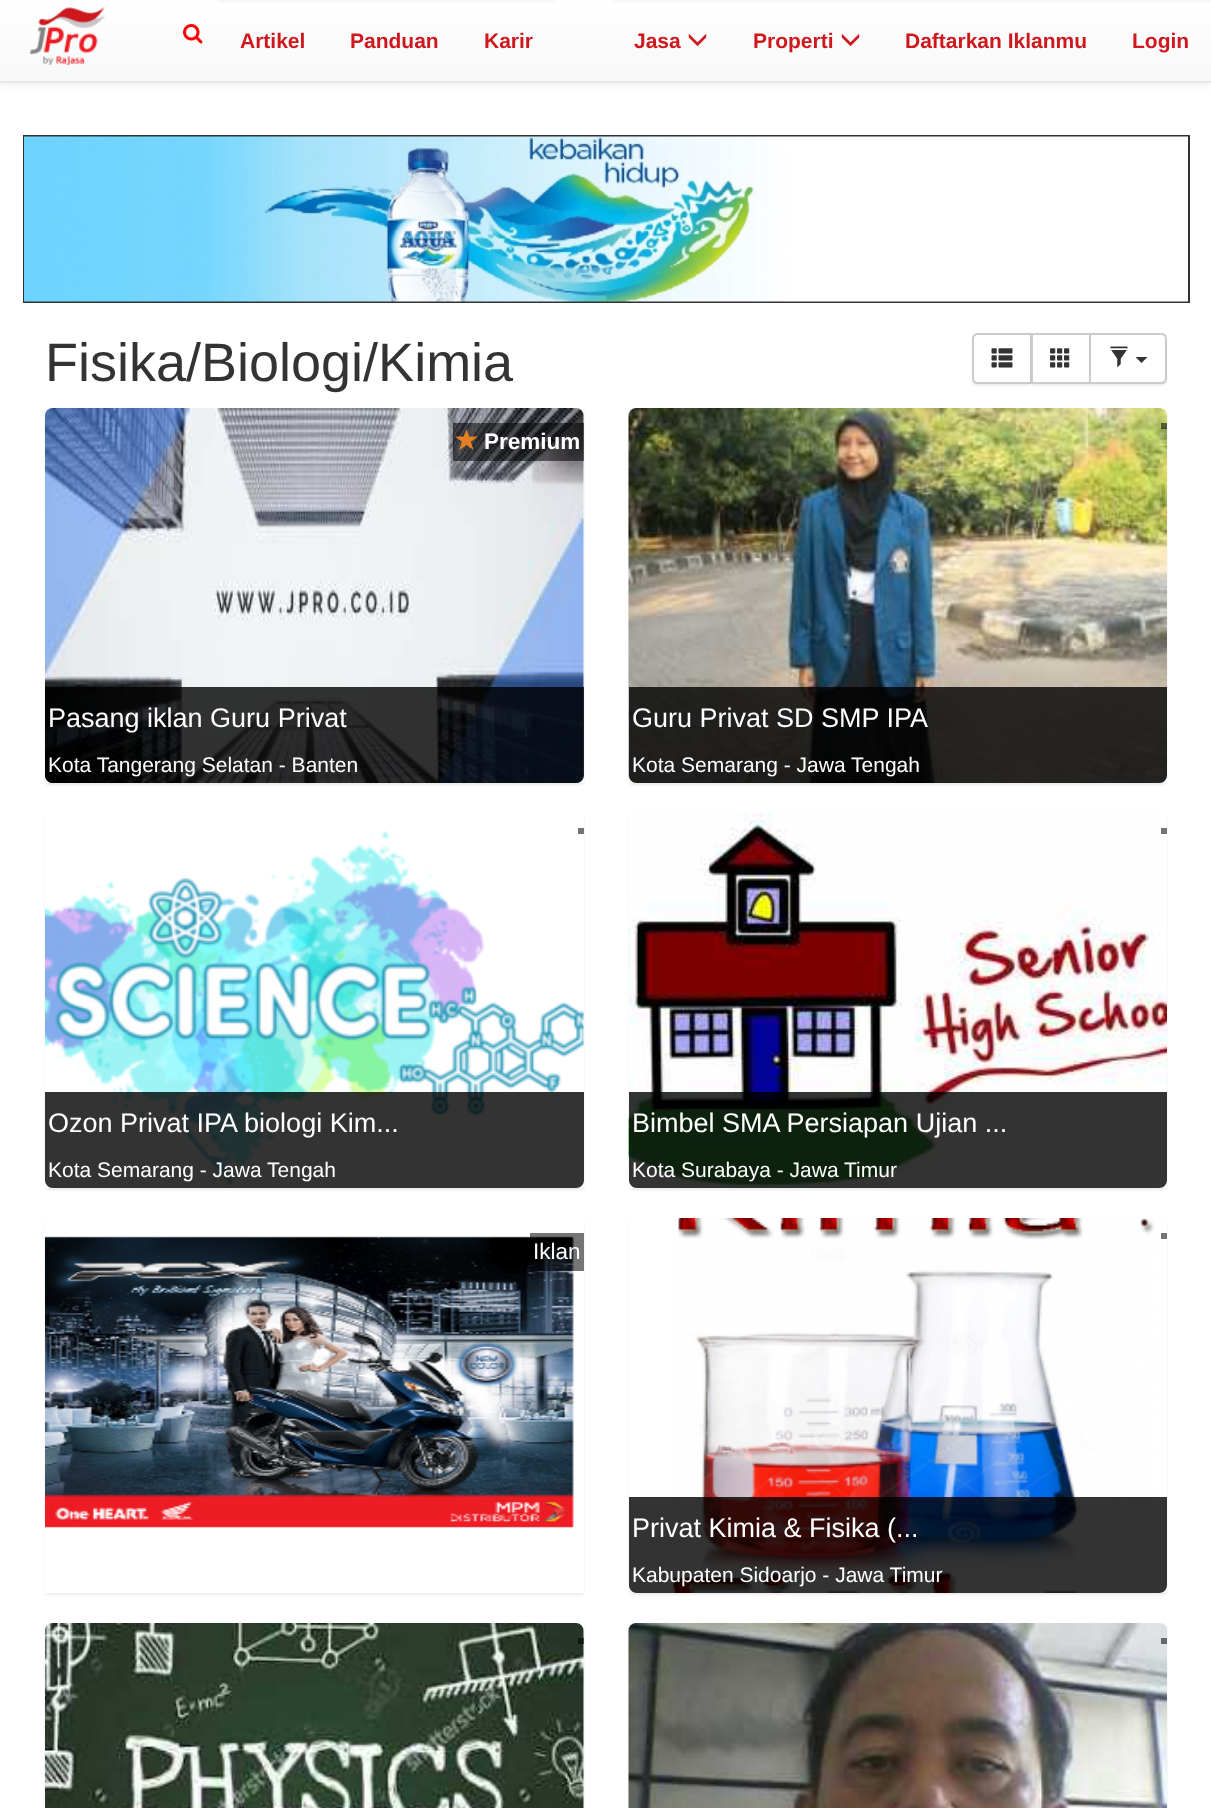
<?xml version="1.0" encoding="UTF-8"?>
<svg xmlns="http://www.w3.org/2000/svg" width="1211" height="1808">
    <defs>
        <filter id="blur1" x="-50%" y="-200%" width="200%" height="500%"><feGaussianBlur stdDeviation="4"/></filter>
        <linearGradient id="g1" gradientUnits="userSpaceOnUse" x1="606" y1="0" x2="606" y2="81"><stop offset="0" stop-color="#FFFFFF"/><stop offset="1" stop-color="#F8F8F8"/></linearGradient>
        <filter id="blur2" x="-50%" y="-200%" width="200%" height="500%"><feGaussianBlur stdDeviation="1"/></filter>
    </defs>
    <rect width="100%" height="100%" fill="#FFFFFF"/>
    <rect x="0" y="2" width="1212" height="82" fill="#000000" fill-opacity="0.07" filter="url(#blur1)"/>
    <rect x="0" y="0" width="1211" height="81" fill="url(#g1)"/>
    <rect x="0" y="81" width="1211" height="2" fill="#E7E7E7"/>
    <image x="30" y="6" width="76" height="59" href="img_01.png"/>
    <image x="183" y="24" width="20" height="20" href="img_02.png"/>
    <rect x="218" y="0" width="337" height="3" fill="#F8F8F8"/>
    <text x="240" y="48" font-family="Liberation Sans" font-size="21" font-weight="700" fill="#CF181D">Artikel</text>
    <text x="350" y="48" font-family="Liberation Sans" font-size="21" font-weight="700" fill="#CF181D">Panduan</text>
    <text x="484" y="48" font-family="Liberation Sans" font-size="21" font-weight="700" fill="#CF181D">Karir</text>
    <rect x="612" y="0" width="599" height="3" fill="#F8F8F8"/>
    <text x="634" y="48" font-family="Liberation Sans" font-size="21" font-weight="700" fill="#CF181D">Jasa</text>
    <image x="688" y="34" width="19" height="12" href="img_03.png"/>
    <text x="753" y="48" font-family="Liberation Sans" font-size="21" font-weight="700" fill="#CF181D">Properti</text>
    <image x="841" y="34" width="19" height="12" href="img_03.png"/>
    <text x="905" y="48" font-family="Liberation Sans" font-size="21" font-weight="700" fill="#CF181D">Daftarkan Iklanmu</text>
    <text x="1132" y="48" font-family="Liberation Sans" font-size="21" font-weight="700" fill="#CF181D">Login</text>
    <rect x="24" y="136" width="1165" height="166" fill="none" stroke="#333333" stroke-width="2"/>
    <image x="24" y="136" width="1164" height="166" href="img_04.png"/>
    <text x="45" y="381" font-family="Liberation Sans" font-size="54" fill="#333333">Fisika/Biologi/Kimia</text>
    <rect x="972" y="335" width="60" height="51" rx="6" fill="#000000" fill-opacity="0.07" filter="url(#blur2)"/>
    <path d="M 978 334 H 1031 V 383 H 978 C 975 383 973 381 973 378 V 339 C 973 336 975 334 978 334 Z" fill="#FFFFFF" stroke="#CCCCCC" stroke-width="2"/>
    <image x="991" y="348" width="22" height="20" href="img_05.png"/>
    <rect x="1031" y="335" width="60" height="51" fill="#000000" fill-opacity="0.07" filter="url(#blur2)"/>
    <rect x="1032" y="334" width="58" height="49" fill="#FFFFFF" stroke="#CCCCCC" stroke-width="2"/>
    <image x="1050" y="348" width="20" height="20" href="img_06.png"/>
    <rect x="1089" y="335" width="78" height="51" rx="6" fill="#000000" fill-opacity="0.07" filter="url(#blur2)"/>
    <path d="M 1090 334 H 1161 C 1164 334 1166 336 1166 339 V 378 C 1166 381 1164 383 1161 383 H 1090 Z" fill="#FFFFFF" stroke="#CCCCCC" stroke-width="2"/>
    <image x="1110" y="346" width="18" height="22" href="img_07.png"/>
    <path d="M 1135.5 357 H 1147.5 L 1141.5 363 Z" fill="#333333"/>
    <rect x="45" y="410" width="539" height="375" rx="3" fill="#000000" fill-opacity="0.08" filter="url(#blur2)"/>
    <rect x="45" y="408" width="539" height="375" rx="3" fill="#FFFFFF"/>
    <image x="45" y="408" width="539" height="375" href="img_08.png"/>
    <rect x="453" y="423" width="131" height="38" fill="#000000" fill-opacity="0.54"/>
    <image x="455" y="429" width="23" height="21" href="img_09.png"/>
    <text x="484" y="449" font-family="Liberation Sans" font-size="22.5" font-weight="700" fill="#FFFFFF">Premium</text>
    <path d="M 45 687 H 584 V 775 C 584 779.5 580.5 783 576 783 H 53 C 48.5 783 45 779.5 45 775 Z" fill="#000000" fill-opacity="0.8"/>
    <text x="48" y="727" font-family="Liberation Sans" font-size="27" fill="#FFFFFF">Pasang iklan Guru Privat</text>
    <text x="48" y="772" font-family="Liberation Sans" font-size="21" fill="#FFFFFF">Kota Tangerang Selatan - Banten</text>
    <rect x="629" y="410" width="538" height="375" rx="3" fill="#000000" fill-opacity="0.08" filter="url(#blur2)"/>
    <rect x="629" y="408" width="538" height="375" rx="3" fill="#FFFFFF"/>
    <image x="628" y="408" width="539" height="375" href="img_10.png"/>
    <rect x="1161" y="423" width="6" height="6" fill="#000000" fill-opacity="0.54"/>
    <path d="M 629 687 H 1167 V 775 C 1167 779.5 1163.5 783 1159 783 H 637 C 632.5 783 629 779.5 629 775 Z" fill="#000000" fill-opacity="0.8"/>
    <text x="632" y="727" font-family="Liberation Sans" font-size="27" fill="#FFFFFF">Guru Privat SD SMP IPA</text>
    <text x="632" y="772" font-family="Liberation Sans" font-size="21" fill="#FFFFFF">Kota Semarang - Jawa Tengah</text>
    <rect x="45" y="815" width="539" height="375" rx="3" fill="#000000" fill-opacity="0.08" filter="url(#blur2)"/>
    <rect x="45" y="813" width="539" height="375" rx="3" fill="#FFFFFF"/>
    <image x="45" y="830" width="539" height="356" href="img_11.png"/>
    <rect x="578" y="828" width="6" height="6" fill="#757575"/>
    <path d="M 45 1092 H 584 V 1180 C 584 1184.5 580.5 1188 576 1188 H 53 C 48.5 1188 45 1184.5 45 1180 Z" fill="#000000" fill-opacity="0.8"/>
    <text x="48" y="1132" font-family="Liberation Sans" font-size="27" fill="#FFFFFF">Ozon Privat IPA biologi Kim...</text>
    <text x="48" y="1177" font-family="Liberation Sans" font-size="21" fill="#FFFFFF">Kota Semarang - Jawa Tengah</text>
    <rect x="629" y="815" width="538" height="375" rx="3" fill="#000000" fill-opacity="0.08" filter="url(#blur2)"/>
    <rect x="629" y="813" width="538" height="375" rx="3" fill="#FFFFFF"/>
    <image x="628" y="813" width="539" height="375" href="img_12.png"/>
    <rect x="1161" y="828" width="6" height="6" fill="#757575"/>
    <path d="M 629 1092 H 1167 V 1180 C 1167 1184.5 1163.5 1188 1159 1188 H 637 C 632.5 1188 629 1184.5 629 1180 Z" fill="#000000" fill-opacity="0.8"/>
    <text x="632" y="1132" font-family="Liberation Sans" font-size="27" fill="#FFFFFF">Bimbel SMA Persiapan Ujian ...</text>
    <text x="632" y="1177" font-family="Liberation Sans" font-size="21" fill="#FFFFFF">Kota Surabaya - Jawa Timur</text>
    <rect x="45" y="1220" width="539" height="375" rx="3" fill="#000000" fill-opacity="0.08" filter="url(#blur2)"/>
    <rect x="45" y="1218" width="539" height="375" rx="3" fill="#FFFFFF"/>
    <image x="45" y="1236" width="539" height="357" href="img_13.png"/>
    <rect x="530" y="1233" width="54" height="38" fill="#000000" fill-opacity="0.54"/>
    <text x="533" y="1259" font-family="Liberation Sans" font-size="22.5" fill="#FFFFFF">Iklan</text>
    <rect x="629" y="1220" width="538" height="375" rx="3" fill="#000000" fill-opacity="0.08" filter="url(#blur2)"/>
    <rect x="629" y="1218" width="538" height="375" rx="3" fill="#FFFFFF"/>
    <image x="673" y="1218" width="482" height="375" href="img_14.png"/>
    <rect x="1161" y="1233" width="6" height="6" fill="#757575"/>
    <path d="M 629 1497 H 1167 V 1585 C 1167 1589.5 1163.5 1593 1159 1593 H 637 C 632.5 1593 629 1589.5 629 1585 Z" fill="#000000" fill-opacity="0.8"/>
    <text x="632" y="1537" font-family="Liberation Sans" font-size="27" fill="#FFFFFF">Privat Kimia &amp; Fisika (...</text>
    <text x="632" y="1582" font-family="Liberation Sans" font-size="21" fill="#FFFFFF">Kabupaten Sidoarjo - Jawa Timur</text>
    <rect x="45" y="1625" width="539" height="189" rx="3" fill="#000000" fill-opacity="0.08" filter="url(#blur2)"/>
    <rect x="45" y="1623" width="539" height="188" rx="3" fill="#FFFFFF"/>
    <image x="45" y="1623" width="539" height="185" href="img_15.png"/>
    <rect x="578" y="1638" width="6" height="6" fill="#000000" fill-opacity="0.54"/>
    <rect x="629" y="1625" width="538" height="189" rx="3" fill="#000000" fill-opacity="0.08" filter="url(#blur2)"/>
    <image x="628" y="1623" width="539" height="185" href="img_16.png"/>
    <rect x="1161" y="1638" width="6" height="6" fill="#666869"/>
</svg>
